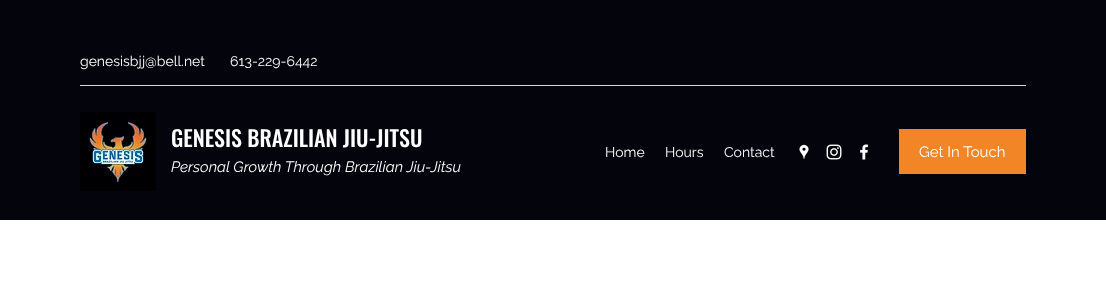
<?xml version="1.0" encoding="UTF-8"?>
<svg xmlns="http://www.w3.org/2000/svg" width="1106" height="303">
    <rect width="100%" height="100%" fill="#FFFFFF"/>
    <rect x="0" y="0" width="1106" height="220" fill="#04040C"/>
    <text x="80" y="66" font-family="Raleway" font-size="14" fill="#FFFFFF">genesisbjj@bell.net</text>
    <text x="230" y="66" font-family="Raleway" font-size="14" fill="#FFFFFF">613-229-6442</text>
    <rect x="80" y="85" width="946" height="1" fill="#D9D9DB"/>
    <image x="80" y="112" width="76" height="79" href="img_01.png"/>
    <text x="171" y="147" font-family="Oswald" font-size="22" font-weight="500" fill="#FFFFFF">GENESIS BRAZILIAN JIU-JITSU</text>
    <text x="171" y="172" font-family="Raleway" font-size="15" font-style="italic" fill="#FFFFFF">Personal Growth Through Brazilian Jiu-Jitsu</text>
    <text x="605" y="157" font-family="Raleway" font-size="14" fill="#FFFFFF">Home</text>
    <text x="665" y="157" font-family="Raleway" font-size="14" fill="#FFFFFF">Hours</text>
    <text x="724" y="157" font-family="Raleway" font-size="14" fill="#FFFFFF">Contact</text>
    <image x="799" y="144" width="10" height="15" href="img_02.png"/>
    <image x="826" y="144" width="16" height="16" href="img_03.png"/>
    <image x="860" y="144" width="9" height="16" href="img_04.png"/>
    <rect x="899" y="129" width="127" height="45" fill="#F28626"/>
    <text x="919" y="157" font-family="Raleway" font-size="15" fill="#FFFFFF">Get In Touch</text>
</svg>
